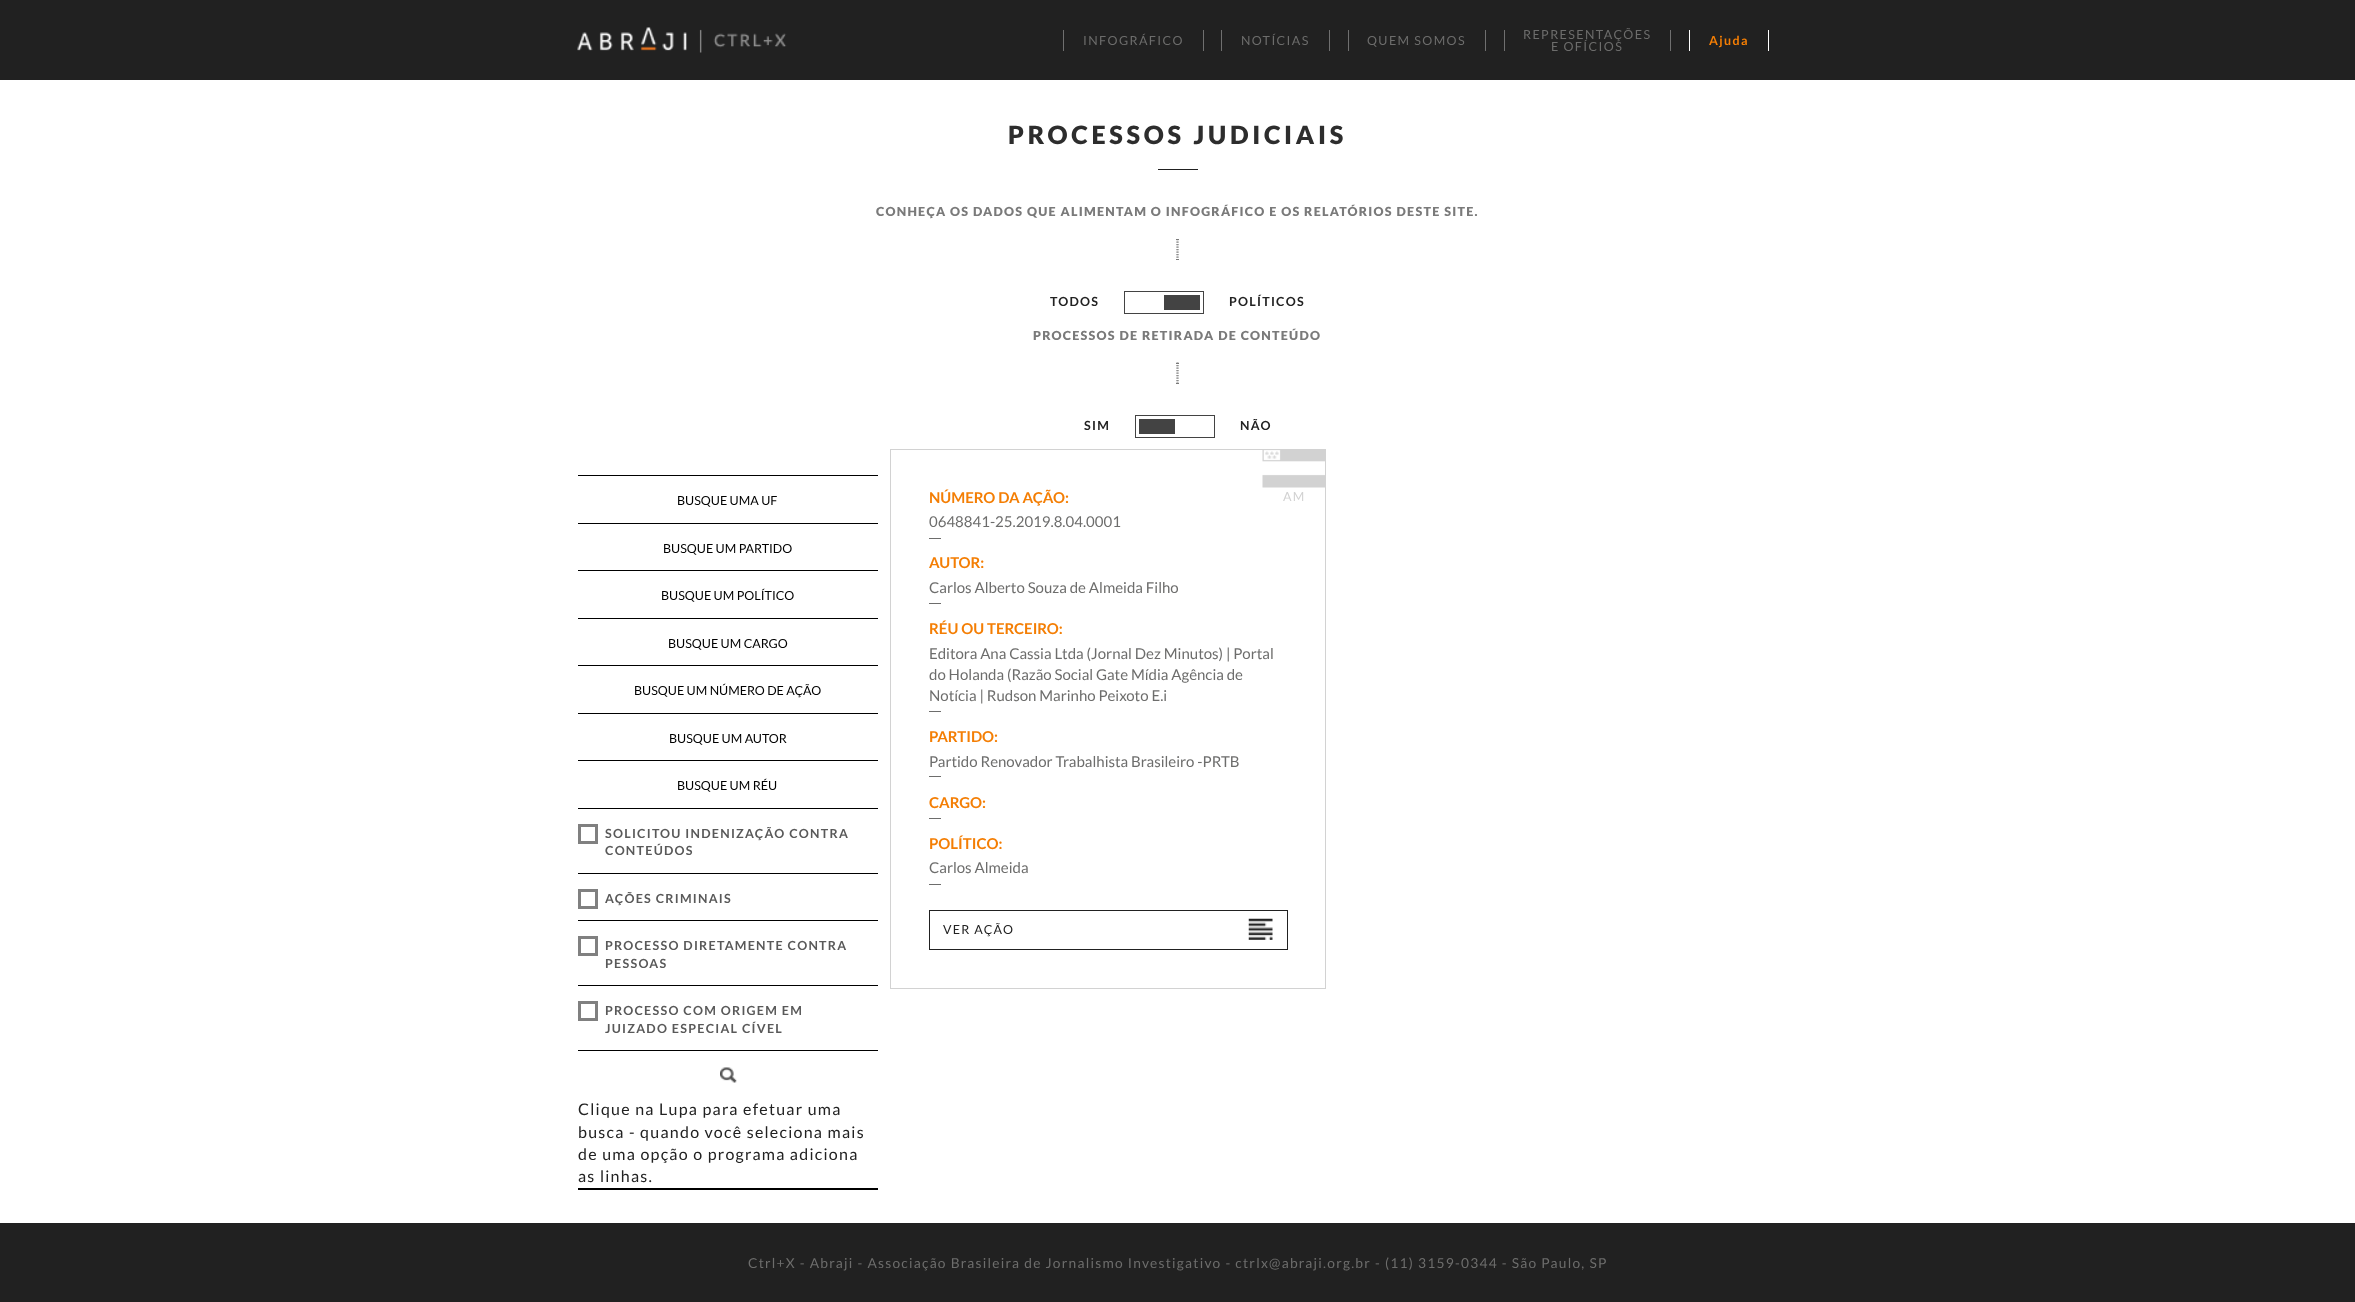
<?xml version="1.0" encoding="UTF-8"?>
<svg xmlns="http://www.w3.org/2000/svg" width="2355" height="1302">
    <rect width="100%" height="100%" fill="#FFFFFF"/>
    <rect x="0" y="0" width="2355" height="80" fill="#212121"/>
    <image x="577" y="27" width="210" height="26" href="img_01.png"/>
    <rect x="1063" y="30" width="1" height="21" fill="#6F6F6F"/>
    <text x="1083" y="45" font-family="Lato" font-size="12.5" letter-spacing="1.4" fill="#6D6D6C">INFOGRÁFICO</text>
    <rect x="1203" y="30" width="1" height="21" fill="#6F6F6F"/>
    <rect x="1221" y="30" width="1" height="21" fill="#6F6F6F"/>
    <text x="1241" y="45" font-family="Lato" font-size="12.5" letter-spacing="1.4" fill="#6D6D6C">NOTÍCIAS</text>
    <rect x="1329" y="30" width="1" height="21" fill="#6F6F6F"/>
    <rect x="1348" y="30" width="1" height="21" fill="#6F6F6F"/>
    <text x="1367" y="45" font-family="Lato" font-size="12.5" letter-spacing="1.4" fill="#6D6D6C">QUEM SOMOS</text>
    <rect x="1485" y="30" width="1" height="21" fill="#6F6F6F"/>
    <rect x="1504" y="30" width="1" height="21" fill="#6F6F6F"/>
    <text x="1523" y="39" font-family="Lato" font-size="12.5" letter-spacing="1.4" fill="#6D6D6C">REPRESENTAÇÕES</text>
    <rect x="1670" y="30" width="1" height="21" fill="#6F6F6F"/>
    <text x="1551" y="51" font-family="Lato" font-size="12.5" letter-spacing="1.4" fill="#6D6D6C">E OFÍCIOS</text>
    <rect x="1689" y="30" width="1" height="21" fill="#FFFFFF"/>
    <text x="1709" y="45" font-family="Lato" font-size="12.5" font-weight="700" letter-spacing="1.4" fill="#F47E04">Ajuda</text>
    <rect x="1768" y="30" width="1" height="21" fill="#FFFFFF"/>
    <text x="1008" y="144" font-family="Lato" font-size="25" font-weight="900" letter-spacing="3.75" fill="#2D2D2D">PROCESSOS JUDICIAIS</text>
    <rect x="1158" y="169" width="40" height="1" fill="#212121"/>
    <text x="876" y="216" font-family="Lato" font-size="12.5" font-weight="900" letter-spacing="1.25" fill="#7A7A7A">CONHEÇA OS DADOS QUE ALIMENTAM O INFOGRÁFICO E OS RELATÓRIOS DESTE SITE.</text>
    <rect x="1176" y="239" width="3" height="1" fill="#7A7A7A"/>
    <path d="M 1178 239 V 260" fill="none" stroke="#7A7A7A" stroke-width="1.2" stroke-dasharray="1.25 1.25"/>
    <rect x="1176" y="259" width="3" height="1" fill="#7A7A7A"/>
    <path d="M 1177 239 V 260" fill="none" stroke="#7A7A7A" stroke-width="1.2" stroke-dasharray="1.25 1.25"/>
    <text x="1050" y="306" font-family="Lato" font-size="12.5" font-weight="700" letter-spacing="1.25" fill="#222222">TODOS</text>
    <rect x="1124.5" y="291.5" width="79" height="22" fill="none" stroke="#434343"/>
    <rect x="1164" y="295" width="36" height="15" fill="#434343"/>
    <text x="1229" y="306" font-family="Lato" font-size="12.5" font-weight="700" letter-spacing="1.25" fill="#222222">POLÍTICOS</text>
    <text x="1033" y="340" font-family="Lato" font-size="12.5" font-weight="900" letter-spacing="1.25" fill="#7A7A7A">PROCESSOS DE RETIRADA DE CONTEÚDO</text>
    <rect x="1176" y="363" width="3" height="1" fill="#7A7A7A"/>
    <path d="M 1178 362.5 V 384" fill="none" stroke="#7A7A7A" stroke-width="1.2" stroke-dasharray="1.25 1.25"/>
    <rect x="1176" y="383" width="3" height="1" fill="#7A7A7A"/>
    <path d="M 1177 362.5 V 384" fill="none" stroke="#7A7A7A" stroke-width="1.2" stroke-dasharray="1.25 1.25"/>
    <text x="1084" y="430" font-family="Lato" font-size="12.5" font-weight="700" letter-spacing="1.25" fill="#222222">SIM</text>
    <rect x="1135.5" y="415.5" width="79" height="22" fill="none" stroke="#434343"/>
    <rect x="1139" y="419" width="36" height="15" fill="#434343"/>
    <text x="1240" y="430" font-family="Lato" font-size="12.5" font-weight="700" letter-spacing="1.25" fill="#222222">NÃO</text>
    <rect x="578" y="475" width="300" height="1" fill="#000000"/>
    <rect x="578" y="1188" width="300" height="2" fill="#000000"/>
    <text x="677" y="505" font-family="Lato" font-size="12.5" fill="#000000">BUSQUE UMA UF</text>
    <rect x="578" y="523" width="300" height="1" fill="#000000"/>
    <text x="663" y="553" font-family="Lato" font-size="12.5" fill="#000000">BUSQUE UM PARTIDO</text>
    <rect x="578" y="570" width="300" height="1" fill="#000000"/>
    <text x="661" y="600" font-family="Lato" font-size="12.5" fill="#000000">BUSQUE UM POLÍTICO</text>
    <rect x="578" y="618" width="300" height="1" fill="#000000"/>
    <text x="668" y="648" font-family="Lato" font-size="12.5" fill="#000000">BUSQUE UM CARGO</text>
    <rect x="578" y="665" width="300" height="1" fill="#000000"/>
    <text x="634" y="695" font-family="Lato" font-size="12.5" fill="#000000">BUSQUE UM NÚMERO DE AÇÃO</text>
    <rect x="578" y="713" width="300" height="1" fill="#000000"/>
    <text x="669" y="743" font-family="Lato" font-size="12.5" fill="#000000">BUSQUE UM AUTOR</text>
    <rect x="578" y="760" width="300" height="1" fill="#000000"/>
    <text x="677" y="790" font-family="Lato" font-size="12.5" fill="#000000">BUSQUE UM RÉU</text>
    <rect x="578" y="808" width="300" height="1" fill="#000000"/>
    <rect x="579.5" y="825.5" width="17" height="17" fill="none" stroke="#808080" stroke-width="3"/>
    <text font-family="Lato" font-size="12.5" font-weight="700" letter-spacing="1.25" fill="#595959">
        <tspan x="605" y="838">SOLICITOU INDENIZAÇÃO CONTRA</tspan>
        <tspan x="605" y="855">CONTEÚDOS</tspan>
    </text>
    <rect x="578" y="873" width="300" height="1" fill="#000000"/>
    <rect x="579.5" y="890.5" width="17" height="17" fill="none" stroke="#808080" stroke-width="3"/>
    <text x="605" y="903" font-family="Lato" font-size="12.5" font-weight="700" letter-spacing="1.25" fill="#595959">AÇÕES CRIMINAIS</text>
    <rect x="578" y="920" width="300" height="1" fill="#000000"/>
    <rect x="579.5" y="937.5" width="17" height="17" fill="none" stroke="#808080" stroke-width="3"/>
    <text font-family="Lato" font-size="12.5" font-weight="700" letter-spacing="1.25" fill="#595959">
        <tspan x="605" y="950">PROCESSO DIRETAMENTE CONTRA</tspan>
        <tspan x="605" y="968">PESSOAS</tspan>
    </text>
    <rect x="578" y="985" width="300" height="1" fill="#000000"/>
    <rect x="579.5" y="1002.5" width="17" height="17" fill="none" stroke="#808080" stroke-width="3"/>
    <text font-family="Lato" font-size="12.5" font-weight="700" letter-spacing="1.25" fill="#595959">
        <tspan x="605" y="1015">PROCESSO COM ORIGEM EM</tspan>
        <tspan x="605" y="1033">JUIZADO ESPECIAL CÍVEL</tspan>
    </text>
    <rect x="578" y="1050" width="300" height="1" fill="#000000"/>
    <image x="720" y="1067" width="17" height="16" href="img_02.png"/>
    <text font-family="Lato" font-size="16" letter-spacing="1.25" fill="#222222">
        <tspan x="578" y="1115">Clique na Lupa para efetuar uma</tspan>
        <tspan x="578" y="1138">busca - quando você seleciona mais</tspan>
        <tspan x="578" y="1160">de uma opção o programa adiciona</tspan>
        <tspan x="578" y="1182">as linhas.</tspan>
    </text>
    <rect x="890.5" y="449.5" width="435" height="539" fill="none" stroke="#D2D2D2"/>
    <text x="929" y="503" font-family="Lato" font-size="15" font-weight="700" fill="#F47E04">NÚMERO DA AÇÃO:</text>
    <image x="1262" y="450" width="63" height="38" href="img_03.png"/>
    <text x="1283" y="501" font-family="Lato" font-size="12.5" letter-spacing="1.25" fill="#D2D2D2">AM</text>
    <text x="929" y="527" font-family="Lato" font-size="15" fill="#6D6D6C">0648841-25.2019.8.04.0001</text>
    <rect x="929" y="538" width="12" height="1" fill="#6D6D6C"/>
    <text x="929" y="568" font-family="Lato" font-size="15" font-weight="700" fill="#F47E04">AUTOR:</text>
    <text x="929" y="593" font-family="Lato" font-size="15" fill="#6D6D6C">Carlos Alberto Souza de Almeida Filho</text>
    <rect x="929" y="603" width="12" height="1" fill="#6D6D6C"/>
    <text x="929" y="634" font-family="Lato" font-size="15" font-weight="700" fill="#F47E04">RÉU OU TERCEIRO:</text>
    <text font-family="Lato" font-size="15" fill="#6D6D6C">
        <tspan x="929" y="659">Editora Ana Cassia Ltda (Jornal Dez Minutos) | Portal</tspan>
        <tspan x="929" y="680">do Holanda (Razão Social Gate Mídia Agência de</tspan>
        <tspan x="929" y="701">Notícia | Rudson Marinho Peixoto E.i</tspan>
    </text>
    <rect x="929" y="711" width="12" height="1" fill="#6D6D6C"/>
    <text x="929" y="742" font-family="Lato" font-size="15" font-weight="700" fill="#F47E04">PARTIDO:</text>
    <text x="929" y="767" font-family="Lato" font-size="15" fill="#6D6D6C">Partido Renovador Trabalhista Brasileiro -PRTB</text>
    <rect x="929" y="776" width="12" height="1" fill="#6D6D6C"/>
    <text x="929" y="808" font-family="Lato" font-size="15" font-weight="700" fill="#F47E04">CARGO:</text>
    <rect x="929" y="818" width="12" height="1" fill="#6D6D6C"/>
    <text x="929" y="849" font-family="Lato" font-size="15" font-weight="700" fill="#F47E04">POLÍTICO:</text>
    <text x="929" y="873" font-family="Lato" font-size="15" fill="#6D6D6C">Carlos Almeida</text>
    <rect x="929" y="884" width="12" height="1" fill="#6D6D6C"/>
    <rect x="929.5" y="910.5" width="358" height="39" fill="none" stroke="#212121"/>
    <text x="943" y="934" font-family="Lato" font-size="12.5" letter-spacing="1.25" fill="#222222">VER AÇÃO</text>
    <image x="1248" y="918" width="25" height="22" href="img_04.png"/>
    <rect x="0" y="1223" width="2355" height="79" fill="#212121"/>
    <text x="748" y="1268" font-family="Lato" font-size="13.75" letter-spacing="1.25" fill="#6D6D6C">Ctrl+X - Abraji - Associação Brasileira de Jornalismo Investigativo - ctrlx@abraji.org.br - (11) 3159-0344 - São Paulo, SP</text>
</svg>
